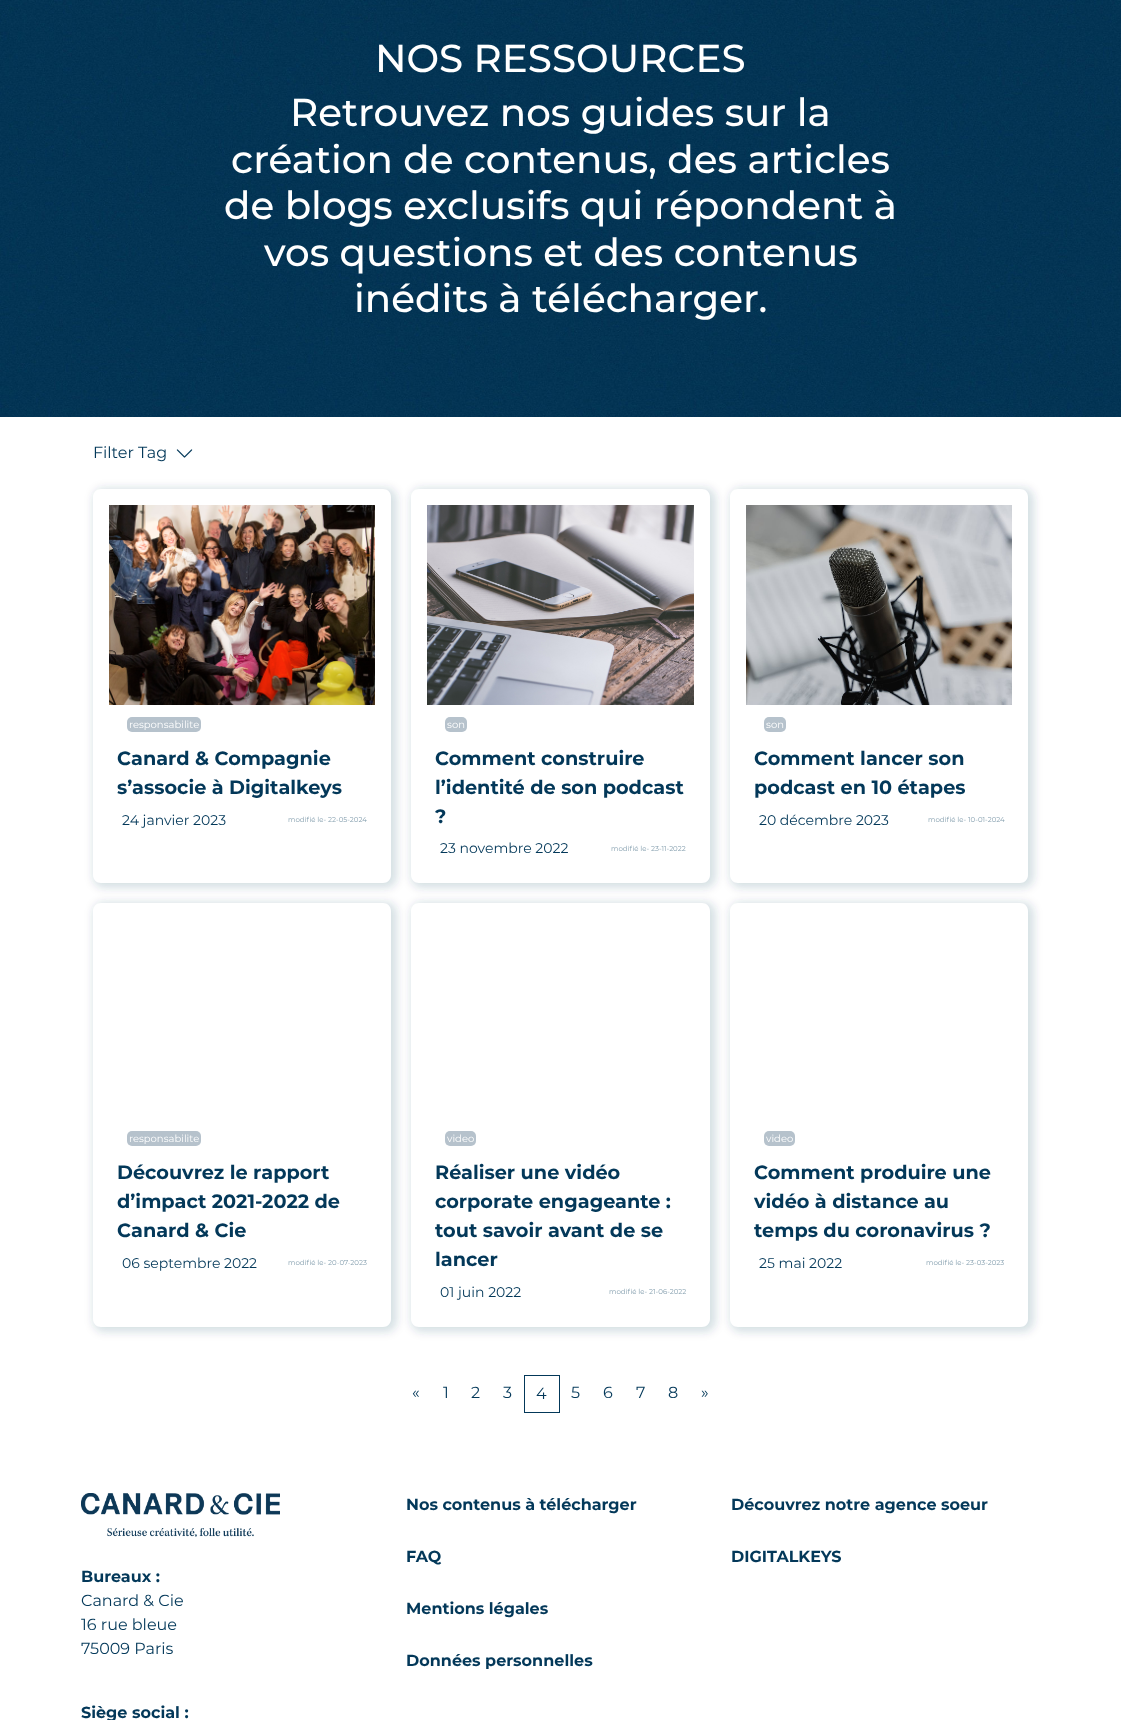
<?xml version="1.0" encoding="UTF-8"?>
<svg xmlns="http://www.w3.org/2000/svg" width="1121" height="1720">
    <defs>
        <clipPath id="clip1"><path d="M 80 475 H 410 V 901 H 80 Z M 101 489 H 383 C 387.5 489 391 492.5 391 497 V 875 C 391 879.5 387.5 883 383 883 H 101 C 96.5 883 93 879.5 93 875 V 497 C 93 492.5 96.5 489 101 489 Z" clip-rule="evenodd"/></clipPath>
        <filter id="blur1" x="-50%" y="-200%" width="200%" height="500%"><feGaussianBlur stdDeviation="4"/></filter>
        <clipPath id="clip2"><path d="M 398 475 H 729 V 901 H 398 Z M 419 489 H 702 C 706.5 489 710 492.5 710 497 V 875 C 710 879.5 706.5 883 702 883 H 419 C 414.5 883 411 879.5 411 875 V 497 C 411 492.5 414.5 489 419 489 Z" clip-rule="evenodd"/></clipPath>
        <clipPath id="clip3"><path d="M 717 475 H 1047 V 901 H 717 Z M 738 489 H 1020 C 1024.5 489 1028 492.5 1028 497 V 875 C 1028 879.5 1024.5 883 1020 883 H 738 C 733.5 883 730 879.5 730 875 V 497 C 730 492.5 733.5 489 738 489 Z" clip-rule="evenodd"/></clipPath>
        <clipPath id="clip4"><path d="M 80 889 H 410 V 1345 H 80 Z M 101 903 H 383 C 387.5 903 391 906.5 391 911 V 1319 C 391 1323.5 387.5 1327 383 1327 H 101 C 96.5 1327 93 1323.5 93 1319 V 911 C 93 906.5 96.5 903 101 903 Z" clip-rule="evenodd"/></clipPath>
        <clipPath id="clip5"><path d="M 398 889 H 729 V 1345 H 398 Z M 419 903 H 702 C 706.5 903 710 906.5 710 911 V 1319 C 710 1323.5 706.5 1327 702 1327 H 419 C 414.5 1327 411 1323.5 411 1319 V 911 C 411 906.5 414.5 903 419 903 Z" clip-rule="evenodd"/></clipPath>
        <clipPath id="clip6"><path d="M 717 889 H 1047 V 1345 H 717 Z M 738 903 H 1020 C 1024.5 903 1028 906.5 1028 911 V 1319 C 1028 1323.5 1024.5 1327 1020 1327 H 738 C 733.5 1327 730 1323.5 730 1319 V 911 C 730 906.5 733.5 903 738 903 Z" clip-rule="evenodd"/></clipPath>
    </defs>
    <rect width="100%" height="100%" fill="#FFFFFF"/>
    <image x="0" y="0" width="1121" height="417" href="img_01.png"/>
    <text x="375" y="72" font-family="Montserrat" font-size="38.8" font-weight="500" fill="#FFFFFF">NOS RESSOURCES</text>
    <text x="290" y="126" font-family="Montserrat" font-size="38.8" font-weight="500" fill="#FFFFFF">Retrouvez nos guides sur la</text>
    <text x="231" y="173" font-family="Montserrat" font-size="38.8" font-weight="500" fill="#FFFFFF">création de contenus, des articles</text>
    <text x="224" y="219" font-family="Montserrat" font-size="38.8" font-weight="500" fill="#FFFFFF">de blogs exclusifs qui répondent à</text>
    <text x="264" y="266" font-family="Montserrat" font-size="38.8" font-weight="500" fill="#FFFFFF">vos questions et des contenus</text>
    <text x="354" y="312" font-family="Montserrat" font-size="38.8" font-weight="500" fill="#FFFFFF">inédits à télécharger.</text>
    <text x="93" y="458" font-family="Montserrat" font-size="16" fill="#033859">Filter Tag</text>
    <image x="176" y="449" width="17" height="9" href="img_02.png"/>
    <g clip-path="url(#clip1)">
        <rect x="93" y="488" width="304" height="400" rx="11" fill="#023859" fill-opacity="0.16" filter="url(#blur1)"/>
    </g>
    <image x="109" y="505" width="266" height="200" href="img_03.png"/>
    <rect x="127" y="717" width="74" height="15" rx="5" fill="#B6C2CC"/>
    <text x="129" y="728" font-family="Montserrat" font-size="10" fill="#FFFFFF">responsabilite</text>
    <text font-family="Montserrat" font-size="19.25" font-weight="700" fill="#033859">
        <tspan x="117" y="765">Canard &amp; Compagnie</tspan>
        <tspan x="117" y="794">s’associe à Digitalkeys</tspan>
    </text>
    <text x="122" y="825" font-family="Montserrat" font-size="14" fill="#033859">24 janvier 2023</text>
    <text x="288" y="822" font-family="Montserrat" font-size="7" fill="#819CAC">modifié le- 22-05-2024</text>
    <g clip-path="url(#clip2)">
        <rect x="411" y="488" width="305" height="400" rx="11" fill="#023859" fill-opacity="0.16" filter="url(#blur1)"/>
    </g>
    <image x="427" y="505" width="267" height="200" href="img_04.png"/>
    <rect x="445" y="717" width="22" height="15" rx="5" fill="#B6C2CC"/>
    <text x="447" y="728" font-family="Montserrat" font-size="10" fill="#FFFFFF">son</text>
    <text font-family="Montserrat" font-size="19.25" font-weight="700" fill="#033859">
        <tspan x="435" y="765">Comment construire</tspan>
        <tspan x="435" y="794">l’identité de son podcast</tspan>
        <tspan x="435" y="823">?</tspan>
    </text>
    <text x="440" y="853" font-family="Montserrat" font-size="14" fill="#033859">23 novembre 2022</text>
    <text x="611" y="851" font-family="Montserrat" font-size="7" fill="#819CAC">modifié le- 23-11-2022</text>
    <g clip-path="url(#clip3)">
        <rect x="730" y="488" width="304" height="400" rx="11" fill="#023859" fill-opacity="0.16" filter="url(#blur1)"/>
    </g>
    <image x="746" y="505" width="266" height="200" href="img_05.png"/>
    <rect x="764" y="717" width="22" height="15" rx="5" fill="#B6C2CC"/>
    <text x="766" y="728" font-family="Montserrat" font-size="10" fill="#FFFFFF">son</text>
    <text font-family="Montserrat" font-size="19.25" font-weight="700" fill="#033859">
        <tspan x="754" y="765">Comment lancer son</tspan>
        <tspan x="754" y="794">podcast en 10 étapes</tspan>
    </text>
    <text x="759" y="825" font-family="Montserrat" font-size="14" fill="#033859">20 décembre 2023</text>
    <text x="928" y="822" font-family="Montserrat" font-size="7" fill="#819CAC">modifié le- 10-01-2024</text>
    <g clip-path="url(#clip4)">
        <rect x="93" y="902" width="304" height="430" rx="11" fill="#023859" fill-opacity="0.16" filter="url(#blur1)"/>
    </g>
    <rect x="127" y="1131" width="74" height="15" rx="5" fill="#B6C2CC"/>
    <text x="129" y="1142" font-family="Montserrat" font-size="10" fill="#FFFFFF">responsabilite</text>
    <text font-family="Montserrat" font-size="19.25" font-weight="700" fill="#033859">
        <tspan x="117" y="1179">Découvrez le rapport</tspan>
        <tspan x="117" y="1208">d’impact 2021-2022 de</tspan>
        <tspan x="117" y="1237">Canard &amp; Cie</tspan>
    </text>
    <text x="122" y="1268" font-family="Montserrat" font-size="14" fill="#033859">06 septembre 2022</text>
    <text x="288" y="1265" font-family="Montserrat" font-size="7" fill="#819CAC">modifié le- 20-07-2023</text>
    <g clip-path="url(#clip5)">
        <rect x="411" y="902" width="305" height="430" rx="11" fill="#023859" fill-opacity="0.16" filter="url(#blur1)"/>
    </g>
    <rect x="445" y="1131" width="31" height="15" rx="5" fill="#B6C2CC"/>
    <text x="447" y="1142" font-family="Montserrat" font-size="10" fill="#FFFFFF">video</text>
    <text font-family="Montserrat" font-size="19.25" font-weight="700" fill="#033859">
        <tspan x="435" y="1179">Réaliser une vidéo</tspan>
        <tspan x="435" y="1208">corporate engageante :</tspan>
        <tspan x="435" y="1237">tout savoir avant de se</tspan>
        <tspan x="435" y="1266">lancer</tspan>
    </text>
    <text x="440" y="1297" font-family="Montserrat" font-size="14" fill="#033859">01 juin 2022</text>
    <text x="609" y="1294" font-family="Montserrat" font-size="7" fill="#819CAC">modifié le- 21-06-2022</text>
    <g clip-path="url(#clip6)">
        <rect x="730" y="902" width="304" height="430" rx="11" fill="#023859" fill-opacity="0.16" filter="url(#blur1)"/>
    </g>
    <rect x="764" y="1131" width="31" height="15" rx="5" fill="#B6C2CC"/>
    <text x="766" y="1142" font-family="Montserrat" font-size="10" fill="#FFFFFF">video</text>
    <text font-family="Montserrat" font-size="19.25" font-weight="700" fill="#033859">
        <tspan x="754" y="1179">Comment produire une</tspan>
        <tspan x="754" y="1208">vidéo à distance au</tspan>
        <tspan x="754" y="1237">temps du coronavirus ?</tspan>
    </text>
    <text x="759" y="1268" font-family="Montserrat" font-size="14" fill="#033859">25 mai 2022</text>
    <text x="926" y="1265" font-family="Montserrat" font-size="7" fill="#819CAC">modifié le- 23-03-2023</text>
    <text x="412" y="1398" font-family="Montserrat" font-size="16" fill="#033859">«</text>
    <text x="443" y="1398" font-family="Montserrat" font-size="16" fill="#033859">1</text>
    <text x="471" y="1398" font-family="Montserrat" font-size="16" fill="#033859">2</text>
    <text x="503" y="1398" font-family="Montserrat" font-size="16" fill="#033859">3</text>
    <rect x="524.5" y="1375.5" width="35" height="37" fill="none" stroke="#033859"/>
    <text x="536" y="1399" font-family="Montserrat" font-size="16" fill="#033859">4</text>
    <text x="571" y="1398" font-family="Montserrat" font-size="16" fill="#033859">5</text>
    <text x="603" y="1398" font-family="Montserrat" font-size="16" fill="#033859">6</text>
    <text x="636" y="1398" font-family="Montserrat" font-size="16" fill="#033859">7</text>
    <text x="668" y="1398" font-family="Montserrat" font-size="16" fill="#033859">8</text>
    <text x="701" y="1398" font-family="Montserrat" font-size="16" fill="#033859">»</text>
    <text x="406" y="1510" font-family="Montserrat" font-size="16" font-weight="700" fill="#033859">Nos contenus à télécharger</text>
    <text x="406" y="1562" font-family="Montserrat" font-size="16" font-weight="700" fill="#033859">FAQ</text>
    <text x="406" y="1614" font-family="Montserrat" font-size="16" font-weight="700" fill="#033859">Mentions légales</text>
    <text x="406" y="1666" font-family="Montserrat" font-size="16" font-weight="700" fill="#033859">Données personnelles</text>
    <text x="731" y="1510" font-family="Montserrat" font-size="16" font-weight="700" fill="#033859">Découvrez notre agence soeur</text>
    <text x="731" y="1562" font-family="Montserrat" font-size="16" font-weight="700" fill="#033859">DIGITALKEYS</text>
    <image x="81" y="1493" width="199" height="44" href="img_06.png"/>
    <text x="81" y="1582" font-family="Montserrat" font-size="16" font-weight="700" fill="#033859">Bureaux :</text>
    <text font-family="Montserrat" font-size="16" fill="#033859">
        <tspan x="81" y="1606">Canard &amp; Cie</tspan>
        <tspan x="81" y="1630">16 rue bleue</tspan>
        <tspan x="81" y="1654">75009 Paris</tspan>
    </text>
    <text x="81" y="1718" font-family="Montserrat" font-size="16" font-weight="700" fill="#033859">Siège social :</text>
</svg>
